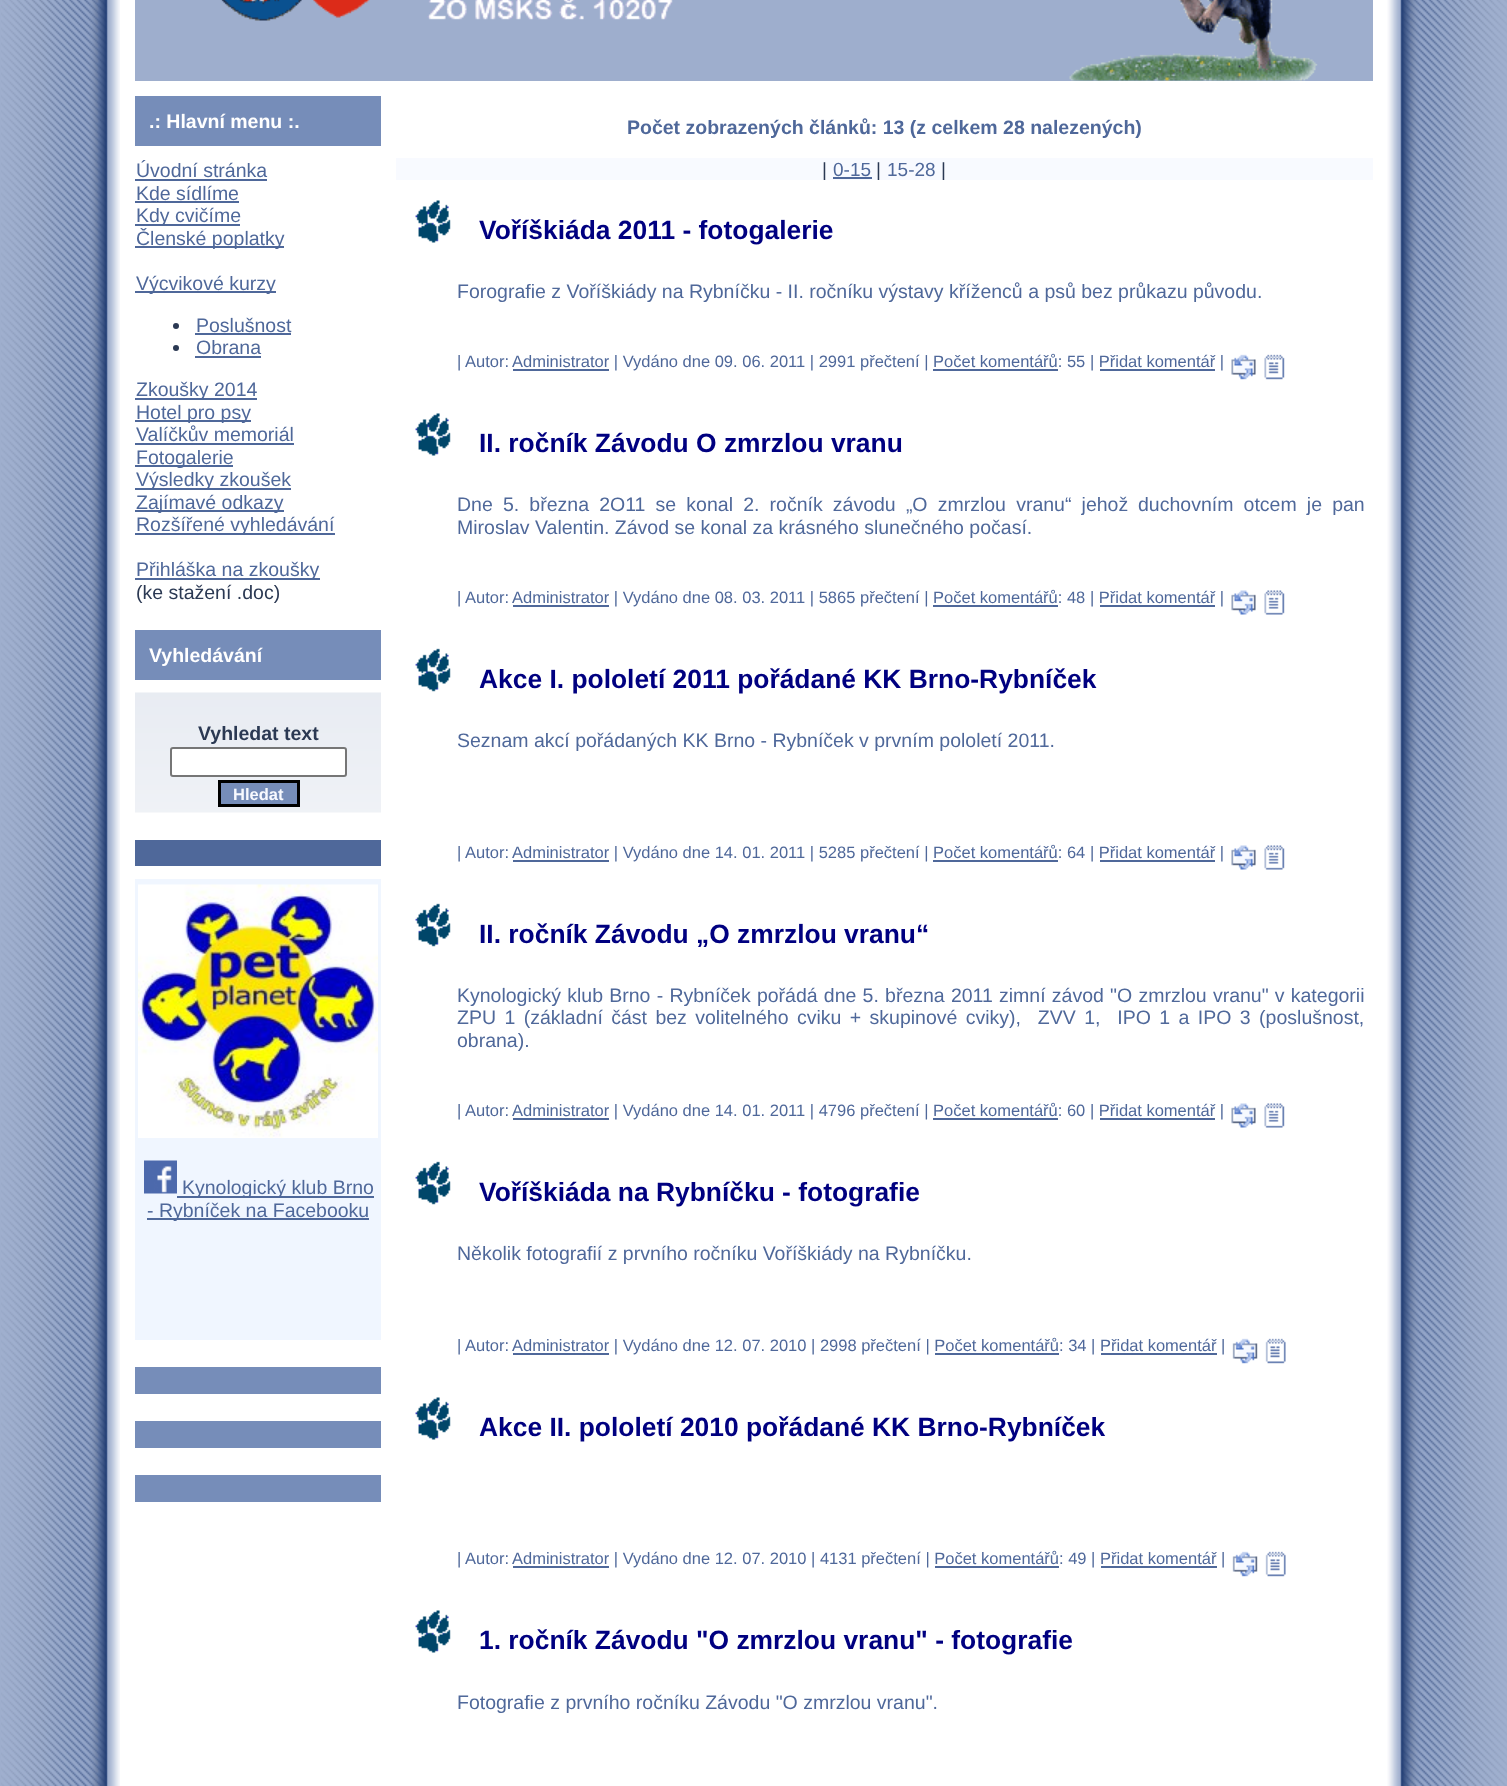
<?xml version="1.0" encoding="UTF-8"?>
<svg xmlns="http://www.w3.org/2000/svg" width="1507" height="1786">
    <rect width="100%" height="100%" fill="#FFFFFF"/>
    <rect x="0" y="0" width="1" height="1786" fill="#9EAECD"/>
    <image x="1" y="0" width="119" height="1786" href="img_01.png"/>
    <rect x="135" y="0" width="1238" height="81" fill="#9EAECD"/>
    <image x="221" y="0" width="452" height="21" href="img_02.png"/>
    <image x="1069" y="0" width="249" height="81" href="img_03.png"/>
    <rect x="135" y="96" width="246" height="50" fill="#768DB9"/>
    <text x="149" y="128" font-family="Liberation Sans" font-size="19.5" font-weight="700" fill="#FFFFFF">.: Hlavní menu :.</text>
    <text x="136" y="177" font-family="Liberation Sans" font-size="19.5" fill="#4F689A">Úvodní stránka</text>
    <rect x="135" y="179" width="132" height="2" fill="#4F689A"/>
    <text x="136" y="200" font-family="Liberation Sans" font-size="19.5" fill="#4F689A">Kde sídlíme</text>
    <rect x="135" y="201" width="104" height="2" fill="#4F689A"/>
    <rect x="135" y="224" width="105" height="2" fill="#4F689A"/>
    <text x="136" y="222" font-family="Liberation Sans" font-size="19.5" fill="#4F689A">Kdy cvičíme</text>
    <rect x="135" y="246" width="149" height="2" fill="#4F689A"/>
    <text x="136" y="245" font-family="Liberation Sans" font-size="19.5" fill="#4F689A">Členské poplatky</text>
    <rect x="135" y="291" width="141" height="2" fill="#4F689A"/>
    <text x="136" y="290" font-family="Liberation Sans" font-size="19.5" fill="#4F689A">Výcvikové kurzy</text>
    <circle cx="176" cy="326" r="3" fill="#2B3953"/>
    <text x="196" y="332" font-family="Liberation Sans" font-size="19.5" fill="#4F689A">Poslušnost</text>
    <rect x="195" y="333" width="96" height="2" fill="#4F689A"/>
    <circle cx="176" cy="348" r="3" fill="#2B3953"/>
    <text x="196" y="354" font-family="Liberation Sans" font-size="19.5" fill="#4F689A">Obrana</text>
    <rect x="195" y="356" width="66" height="2" fill="#4F689A"/>
    <rect x="135" y="398" width="122" height="2" fill="#4F689A"/>
    <text x="136" y="396" font-family="Liberation Sans" font-size="19.5" fill="#4F689A">Zkoušky 2014</text>
    <rect x="135" y="420" width="116" height="2" fill="#4F689A"/>
    <text font-family="Liberation Sans" font-size="19.5" fill="#4F689A">
        <tspan x="136" y="419">Hotel pro psy</tspan>
        <tspan x="136" y="441">Valíčkův memoriál</tspan>
    </text>
    <rect x="135" y="443" width="159" height="2" fill="#4F689A"/>
    <rect x="135" y="465" width="98" height="2" fill="#4F689A"/>
    <text x="136" y="464" font-family="Liberation Sans" font-size="19.5" fill="#4F689A">Fotogalerie</text>
    <rect x="135" y="488" width="156" height="2" fill="#4F689A"/>
    <text x="136" y="486" font-family="Liberation Sans" font-size="19.5" fill="#4F689A">Výsledky zkoušek</text>
    <rect x="135" y="510" width="149" height="2" fill="#4F689A"/>
    <text x="136" y="509" font-family="Liberation Sans" font-size="19.5" fill="#4F689A">Zajímavé odkazy</text>
    <rect x="135" y="533" width="200" height="2" fill="#4F689A"/>
    <text x="136" y="531" font-family="Liberation Sans" font-size="19.5" fill="#4F689A">Rozšířené vyhledávání</text>
    <rect x="135" y="578" width="185" height="2" fill="#4F689A"/>
    <text x="136" y="576" font-family="Liberation Sans" font-size="19.5" fill="#4F689A">Přihláška na zkoušky</text>
    <text x="136" y="599" font-family="Liberation Sans" font-size="19.5" fill="#2B3953">(ke stažení .doc)</text>
    <rect x="135" y="630" width="246" height="50" fill="#768DB9"/>
    <text x="149" y="662" font-family="Liberation Sans" font-size="19.5" font-weight="700" fill="#FFFFFF">Vyhledávání</text>
    <image x="135" y="692" width="246" height="121" href="img_04.png"/>
    <text x="198" y="740" font-family="Liberation Sans" font-size="19.5" font-weight="700" fill="#2B3953">Vyhledat text</text>
    <rect x="171" y="748" width="175" height="28" rx="2" fill="#FFFFFF" stroke="#767676" stroke-width="2"/>
    <rect x="219.5" y="781.5" width="79" height="24" fill="#768DB9" stroke="#000000" stroke-width="3"/>
    <text x="233" y="800" font-family="Liberation Sans" font-size="16.5" font-weight="700" fill="#F8FAFF">Hledat</text>
    <rect x="135" y="840" width="246" height="26" fill="#4F689A"/>
    <rect x="135" y="879" width="246" height="461" fill="#F0F6FF"/>
    <image x="138" y="884" width="240" height="254" href="img_05.png"/>
    <image x="144" y="1160" width="33" height="34" href="img_06.png"/>
    <rect x="177" y="1196" width="197" height="2" fill="#4F689A"/>
    <text x="182" y="1194" font-family="Liberation Sans" font-size="19.5" fill="#4F689A">Kynologický klub Brno</text>
    <rect x="147" y="1218" width="222" height="2" fill="#4F689A"/>
    <text x="147" y="1217" font-family="Liberation Sans" font-size="19.5" fill="#4F689A">- Rybníček na Facebooku</text>
    <rect x="135" y="1367" width="246" height="27" fill="#768DB9"/>
    <rect x="135" y="1421" width="246" height="27" fill="#768DB9"/>
    <rect x="135" y="1475" width="246" height="27" fill="#768DB9"/>
    <text x="627" y="134" font-family="Liberation Sans" font-size="19.5" font-weight="700" fill="#4F689A">Počet zobrazených článků: 13 (z celkem 28 nalezených)</text>
    <rect x="396" y="158" width="977" height="22" fill="#F8FAFF"/>
    <text x="822" y="176" font-family="Liberation Sans" font-size="19" fill="#2B3953">|</text>
    <text x="833" y="176" font-family="Liberation Sans" font-size="19" fill="#4F689A">0-15</text>
    <rect x="833" y="177" width="39" height="2" fill="#4F689A"/>
    <text x="876" y="176" font-family="Liberation Sans" font-size="19" fill="#2B3953">|</text>
    <text x="887" y="176" font-family="Liberation Sans" font-size="19" fill="#4F689A">15-28</text>
    <text x="941" y="176" font-family="Liberation Sans" font-size="19" fill="#2B3953">|</text>
    <image x="415" y="200" width="36" height="43" href="img_07.png"/>
    <text x="479" y="239" font-family="Liberation Sans" font-size="26.4" font-weight="700" fill="#000080">Voříškiáda 2011 - fotogalerie</text>
    <text x="457" y="298" font-family="Liberation Sans" font-size="19.5" fill="#4F689A">Forografie z Voříškiády na Rybníčku - II. ročníku výstavy kříženců a psů bez průkazu původu.</text>
    <text x="457" y="367" font-family="Liberation Sans" font-size="16.5" fill="#4F689A">| Autor:</text>
    <rect x="513" y="369" width="96" height="2" fill="#4F689A"/>
    <text x="512" y="367" font-family="Liberation Sans" font-size="16.5" fill="#4F689A">Administrator | Vydáno dne 09. 06. 2011 | 2991 přečtení | Počet komentářů: 55 | Přidat komentář |</text>
    <rect x="933" y="369" width="125" height="2" fill="#4F689A"/>
    <rect x="1100" y="369" width="115" height="2" fill="#4F689A"/>
    <image x="1231" y="354" width="25" height="26" href="img_08.png"/>
    <image x="1264" y="354" width="21" height="26" href="img_09.png"/>
    <image x="415" y="413" width="36" height="43" href="img_07.png"/>
    <text x="479" y="452" font-family="Liberation Sans" font-size="26.4" font-weight="700" fill="#000080">II. ročník Závodu O zmrzlou vranu</text>
    <text x="457" y="511" word-spacing="4.75" font-family="Liberation Sans" font-size="19.5" fill="#4F689A">Dne 5. března 2O11 se konal 2. ročník závodu „O zmrzlou vranu“ jehož</text>
    <text x="1138" y="511" word-spacing="4.75" font-family="Liberation Sans" font-size="19.5" fill="#4F689A">duchovním otcem je pan</text>
    <text x="457" y="534" font-family="Liberation Sans" font-size="19.5" fill="#4F689A">Miroslav Valentin. Závod se konal za krásného slunečného počasí.</text>
    <text x="457" y="603" font-family="Liberation Sans" font-size="16.5" fill="#4F689A">| Autor:</text>
    <rect x="513" y="605" width="96" height="2" fill="#4F689A"/>
    <text x="512" y="603" font-family="Liberation Sans" font-size="16.5" fill="#4F689A">Administrator | Vydáno dne 08. 03. 2011 | 5865 přečtení | Počet komentářů: 48 | Přidat komentář |</text>
    <rect x="933" y="605" width="125" height="2" fill="#4F689A"/>
    <rect x="1100" y="605" width="115" height="2" fill="#4F689A"/>
    <image x="1231" y="590" width="25" height="25" href="img_10.png"/>
    <image x="1264" y="590" width="21" height="25" href="img_11.png"/>
    <image x="415" y="648" width="36" height="44" href="img_12.png"/>
    <text x="479" y="688" font-family="Liberation Sans" font-size="26.4" font-weight="700" fill="#000080">Akce I. pololetí 2011 pořádané KK Brno-Rybníček</text>
    <text x="457" y="747" font-family="Liberation Sans" font-size="19.5" fill="#4F689A">Seznam akcí pořádaných KK Brno - Rybníček v prvním pololetí 2011.</text>
    <text x="457" y="858" font-family="Liberation Sans" font-size="16.5" fill="#4F689A">| Autor:</text>
    <rect x="513" y="860" width="96" height="2" fill="#4F689A"/>
    <text x="512" y="858" font-family="Liberation Sans" font-size="16.5" fill="#4F689A">Administrator | Vydáno dne 14. 01. 2011 | 5285 přečtení | Počet komentářů: 64 | Přidat komentář |</text>
    <rect x="933" y="860" width="125" height="2" fill="#4F689A"/>
    <rect x="1100" y="860" width="115" height="2" fill="#4F689A"/>
    <image x="1231" y="845" width="25" height="25" href="img_10.png"/>
    <image x="1264" y="845" width="21" height="25" href="img_11.png"/>
    <image x="415" y="903" width="36" height="44" href="img_12.png"/>
    <text x="479" y="943" font-family="Liberation Sans" font-size="26.4" font-weight="700" fill="#000080">II. ročník Závodu „O zmrzlou vranu“</text>
    <text font-family="Liberation Sans" font-size="19.5" fill="#4F689A" xml:space="preserve"><tspan x="457" y="1002" word-spacing="0.8">Kynologický klub Brno - Rybníček pořádá dne 5. března 2011 zimní závod "O zmrzlou vranu" v kategorii</tspan><tspan x="457" y="1024" word-spacing="3">ZPU 1 (základní část bez volitelného cviku + skupinové cviky),  ZVV 1,  IPO 1 a IPO 3 (poslušnost,</tspan><tspan x="457" y="1047">obrana).</tspan></text>
    <text x="457" y="1116" font-family="Liberation Sans" font-size="16.5" fill="#4F689A">| Autor:</text>
    <rect x="513" y="1118" width="96" height="2" fill="#4F689A"/>
    <text x="512" y="1116" font-family="Liberation Sans" font-size="16.5" fill="#4F689A">Administrator | Vydáno dne 14. 01. 2011 | 4796 přečtení | Počet komentářů: 60 | Přidat komentář |</text>
    <rect x="933" y="1118" width="125" height="2" fill="#4F689A"/>
    <rect x="1100" y="1118" width="115" height="2" fill="#4F689A"/>
    <image x="1231" y="1103" width="25" height="25" href="img_10.png"/>
    <image x="1264" y="1103" width="21" height="25" href="img_11.png"/>
    <image x="415" y="1161" width="36" height="44" href="img_12.png"/>
    <text x="479" y="1201" font-family="Liberation Sans" font-size="26.4" font-weight="700" fill="#000080">Voříškiáda na Rybníčku - fotografie</text>
    <text x="457" y="1260" font-family="Liberation Sans" font-size="19.5" fill="#4F689A">Několik fotografií z prvního ročníku Voříškiády na Rybníčku.</text>
    <text x="457" y="1351" font-family="Liberation Sans" font-size="16.5" fill="#4F689A">| Autor:</text>
    <rect x="513" y="1353" width="96" height="2" fill="#4F689A"/>
    <text x="512" y="1351" font-family="Liberation Sans" font-size="16.5" fill="#4F689A">Administrator | Vydáno dne 12. 07. 2010 | 2998 přečtení | Počet komentářů: 34 | Přidat komentář |</text>
    <rect x="935" y="1353" width="124" height="2" fill="#4F689A"/>
    <rect x="1101" y="1353" width="116" height="2" fill="#4F689A"/>
    <image x="1232" y="1338" width="26" height="26" href="img_13.png"/>
    <image x="1265" y="1338" width="21" height="26" href="img_14.png"/>
    <image x="415" y="1397" width="36" height="43" href="img_07.png"/>
    <text x="479" y="1436" font-family="Liberation Sans" font-size="26.4" font-weight="700" fill="#000080">Akce II. pololetí 2010 pořádané KK Brno-Rybníček</text>
    <text x="457" y="1564" font-family="Liberation Sans" font-size="16.5" fill="#4F689A">| Autor:</text>
    <rect x="513" y="1566" width="96" height="2" fill="#4F689A"/>
    <text x="512" y="1564" font-family="Liberation Sans" font-size="16.5" fill="#4F689A">Administrator | Vydáno dne 12. 07. 2010 | 4131 přečtení | Počet komentářů: 49 | Přidat komentář |</text>
    <rect x="935" y="1566" width="124" height="2" fill="#4F689A"/>
    <rect x="1101" y="1566" width="116" height="2" fill="#4F689A"/>
    <image x="1232" y="1551" width="26" height="26" href="img_13.png"/>
    <image x="1265" y="1551" width="21" height="26" href="img_14.png"/>
    <image x="415" y="1610" width="36" height="43" href="img_07.png"/>
    <text x="479" y="1649" font-family="Liberation Sans" font-size="26.4" font-weight="700" fill="#000080">1. ročník Závodu "O zmrzlou vranu" - fotografie</text>
    <text x="457" y="1709" font-family="Liberation Sans" font-size="19.5" fill="#4F689A">Fotografie z prvního ročníku Závodu "O zmrzlou vranu".</text>
    <image x="1387" y="0" width="120" height="1786" href="img_15.png"/>
</svg>
